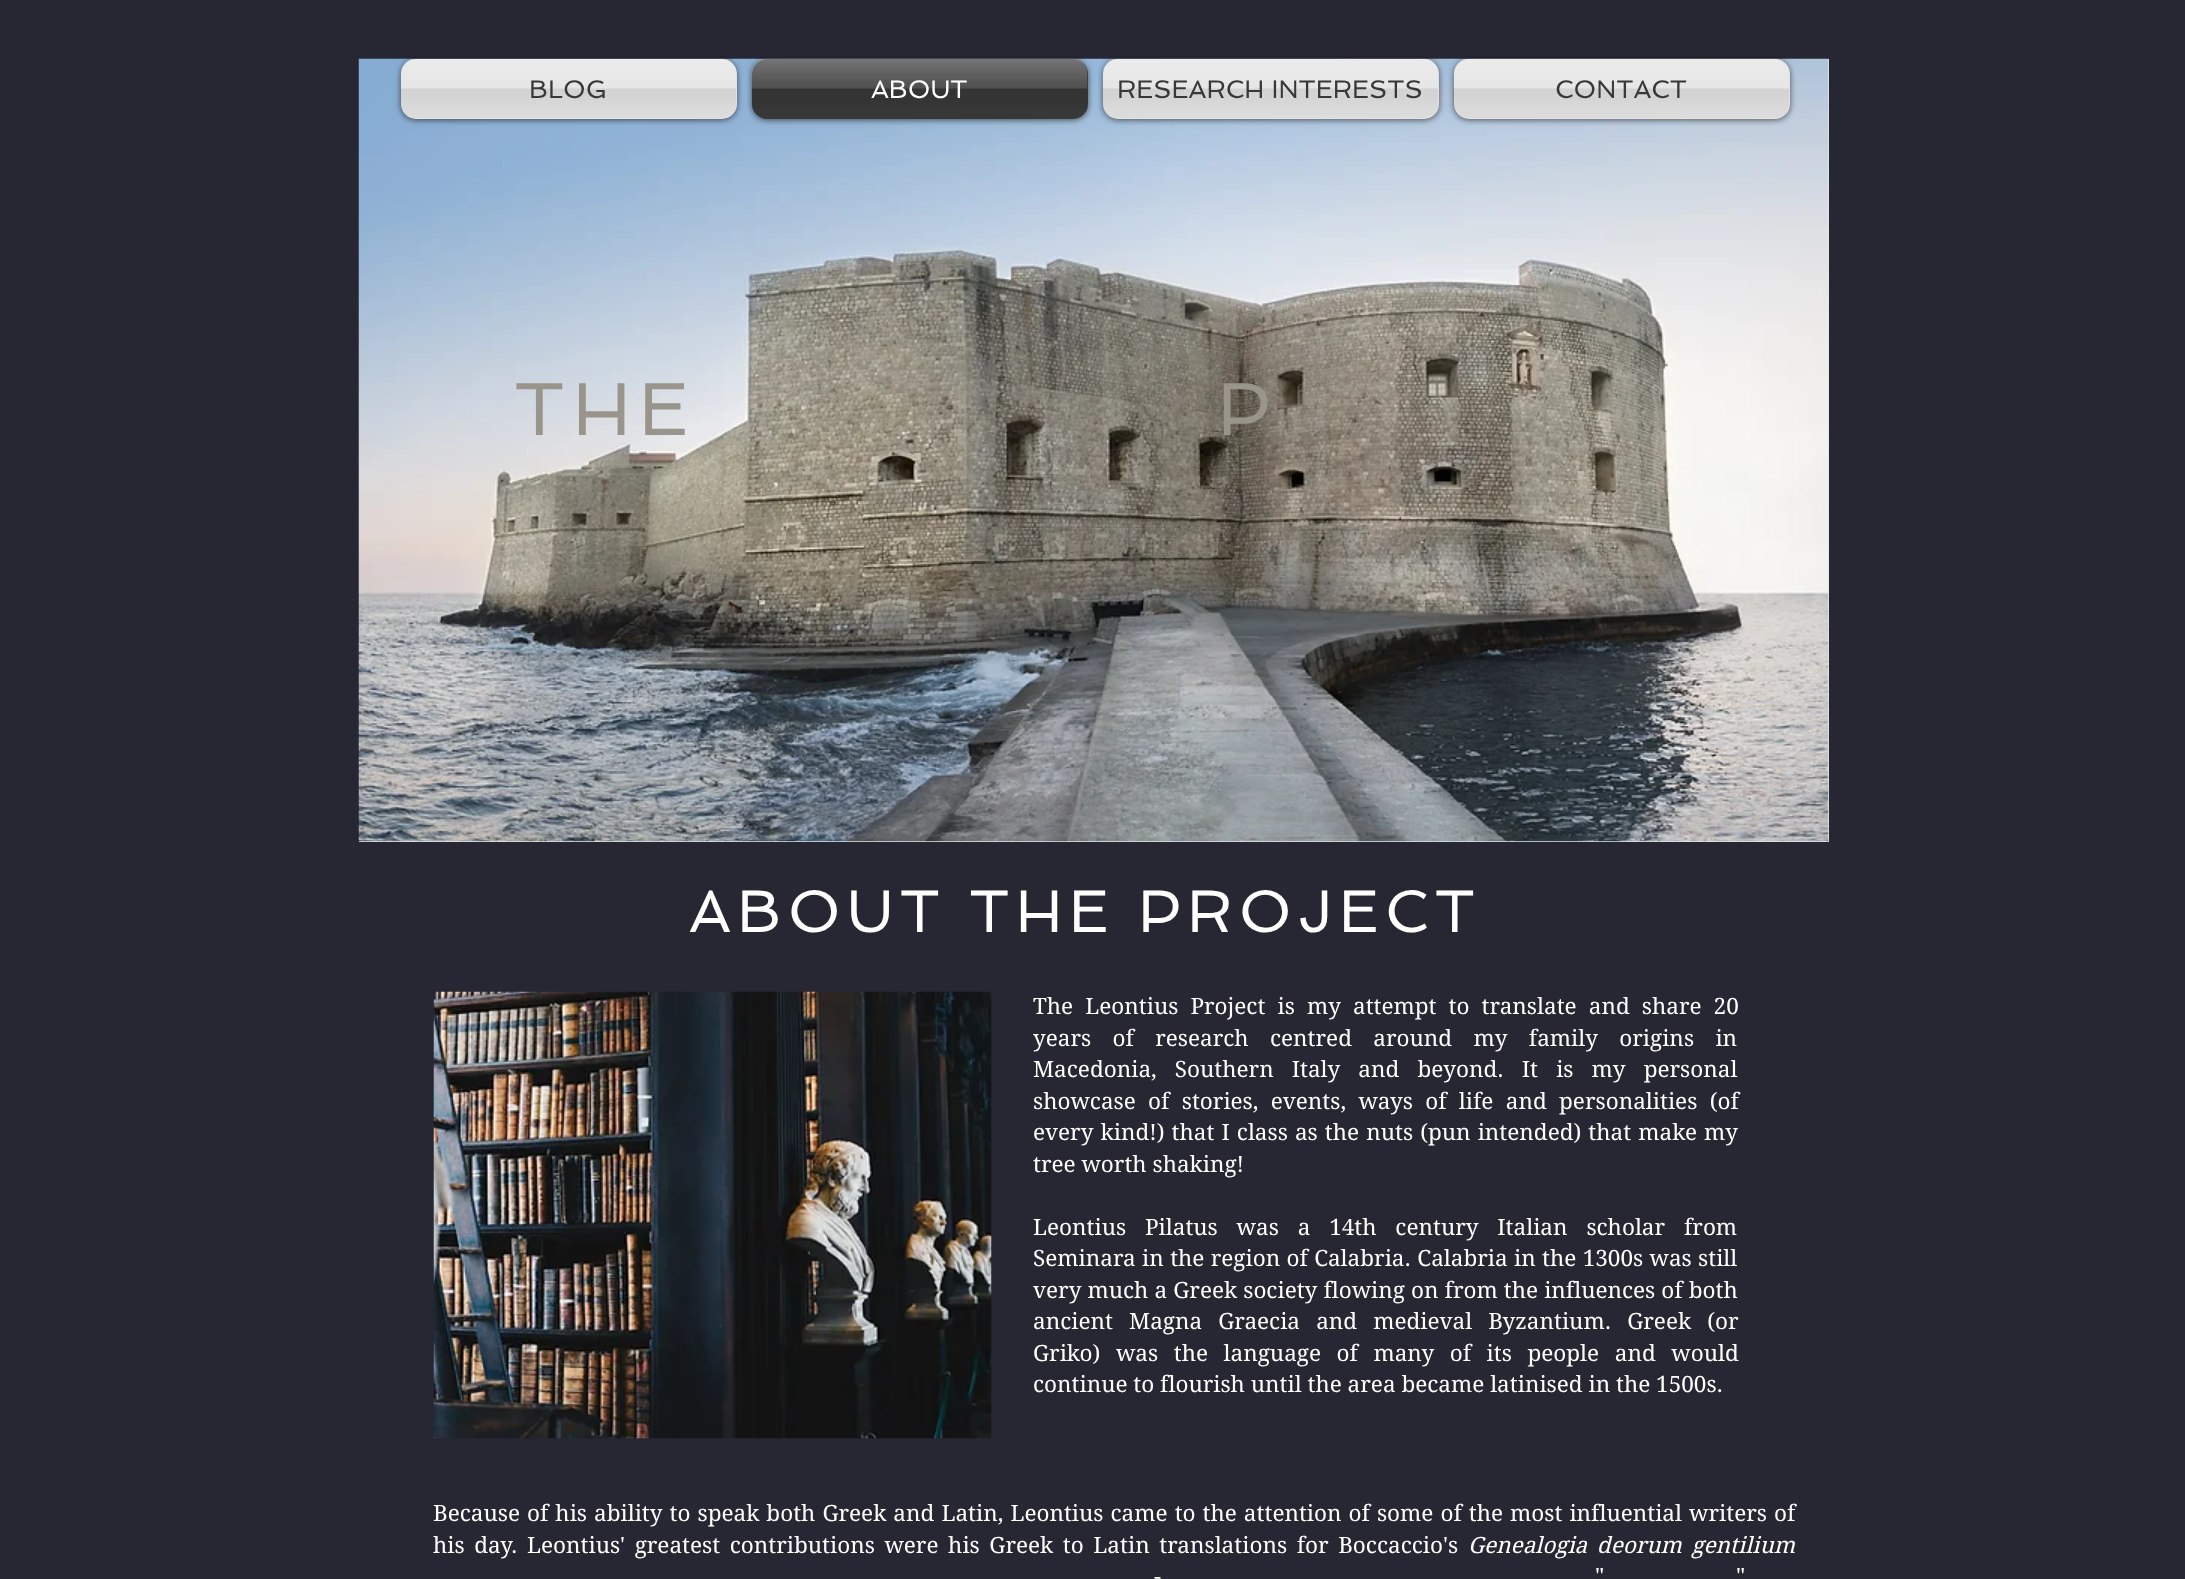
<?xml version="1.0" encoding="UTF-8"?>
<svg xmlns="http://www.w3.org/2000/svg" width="2185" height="1579">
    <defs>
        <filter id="blur1" x="-50%" y="-200%" width="200%" height="500%"><feGaussianBlur stdDeviation="3"/></filter>
    </defs>
    <rect width="100%" height="100%" fill="#272633"/>
    <rect x="359" y="59" width="1470" height="783" fill="#DDE8EB"/>
    <image x="358" y="58" width="1471" height="784" href="img_01.png"/>
    <rect x="401" y="60" width="336" height="60" rx="15" fill="#000000" fill-opacity="0.6" filter="url(#blur1)"/>
    <rect x="401" y="59" width="336" height="60" rx="15" fill="#E3E3E3"/>
    <image x="400" y="58" width="336" height="60" href="img_02.png"/>
    <text x="529" y="98" font-family="Spinnaker" font-size="25.5" fill="#393838">BLOG</text>
    <rect x="752" y="60" width="336" height="60" rx="15" fill="#000000" fill-opacity="0.6" filter="url(#blur1)"/>
    <rect x="752" y="59" width="336" height="60" rx="15" fill="#393838"/>
    <image x="751" y="58" width="337" height="50" href="img_03.png"/>
    <text x="871" y="98" font-family="Spinnaker" font-size="25.5" fill="#FFFFFF">ABOUT</text>
    <rect x="1103" y="60" width="336" height="60" rx="15" fill="#000000" fill-opacity="0.6" filter="url(#blur1)"/>
    <rect x="1103" y="59" width="336" height="60" rx="15" fill="#E3E3E3"/>
    <image x="1102" y="58" width="336" height="60" href="img_04.png"/>
    <text x="1117" y="98" font-family="Spinnaker" font-size="25.5" fill="#393838">RESEARCH INTERESTS</text>
    <rect x="1454" y="60" width="336" height="60" rx="15" fill="#000000" fill-opacity="0.6" filter="url(#blur1)"/>
    <rect x="1454" y="59" width="336" height="60" rx="15" fill="#E3E3E3"/>
    <image x="1453" y="58" width="336" height="60" href="img_05.png"/>
    <text x="1555" y="98" font-family="Spinnaker" font-size="25.5" fill="#393838">CONTACT</text>
    <text x="514" y="435" font-family="Spinnaker" font-size="75" letter-spacing="7.5" fill="#99958C">THE</text>
    <text x="1217" y="435" font-family="Spinnaker" font-size="75" letter-spacing="7.5" fill="#99958C">P</text>
    <text x="689" y="932" font-family="Spinnaker" font-size="60" letter-spacing="6" fill="#FFFFFF">ABOUT THE PROJECT</text>
    <image x="433" y="991" width="559" height="448" href="img_06.png"/>
    <text font-family="'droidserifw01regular'" font-size="22.5" fill="#FFFFFF">
        <tspan x="1033" y="1014" word-spacing="6.25">The Leontius Project is my attempt to translate and share 20</tspan>
        <tspan x="1033" y="1046" word-spacing="15.5">years of research centred around my family origins in</tspan>
        <tspan x="1033" y="1077" word-spacing="12.25">Macedonia, Southern Italy and beyond. It is my personal</tspan>
        <tspan x="1033" y="1109" word-spacing="6.5">showcase of stories, events, ways of life and personalities (of</tspan>
        <tspan x="1033" y="1140" word-spacing="1.25">every kind!) that I class as the nuts (pun intended) that make my</tspan>
        <tspan x="1033" y="1172">tree worth shaking!</tspan>
    </text>
    <text font-family="'droidserifw01regular'" font-size="22.5" fill="#FFFFFF">
        <tspan x="1033" y="1235" word-spacing="13">Leontius Pilatus was a 14th century Italian scholar from</tspan>
        <tspan x="1033" y="1266" word-spacing="0.5">Seminara in the region of Calabria. Calabria in the 1300s was still</tspan>
        <tspan x="1033" y="1298" word-spacing="0.25">very much a Greek society flowing on from the influences of both</tspan>
        <tspan x="1033" y="1329" word-spacing="10.25">ancient Magna Graecia and medieval Byzantium. Greek (or</tspan>
        <tspan x="1033" y="1361" word-spacing="9.75">Griko) was the language of many of its people and would</tspan>
        <tspan x="1033" y="1392">continue to flourish until the area became latinised in the 1500s.</tspan>
    </text>
    <text font-family="'droidserifw01regular'" font-size="22.5" fill="#FFFFFF">
        <tspan x="433" y="1521" word-spacing="1.2">Because of his ability to speak both Greek and Latin, Leontius came to the attention of some of the most influential writers of</tspan>
        <tspan x="433" y="1553" word-spacing="3.75">his day. Leontius' greatest contributions were his Greek to Latin translations for Boccaccio's</tspan>
    </text>
    <text x="1468" y="1553" word-spacing="3.75" font-family="'droidserifw01regular'" font-size="22.5" font-style="italic" fill="#FFFFFF">Genealogia deorum gentilium</text>
    <text x="1595" y="1584" word-spacing="3" font-family="'droidserifw01regular'" font-size="22.5" fill="#FFFFFF">"</text>
    <text x="1736" y="1584" word-spacing="3" font-family="'droidserifw01regular'" font-size="22.5" fill="#FFFFFF">"</text>
    <text x="1154" y="1584" word-spacing="3" font-family="'droidserifw01regular'" font-size="22.5" fill="#FFFFFF">-</text>
</svg>
